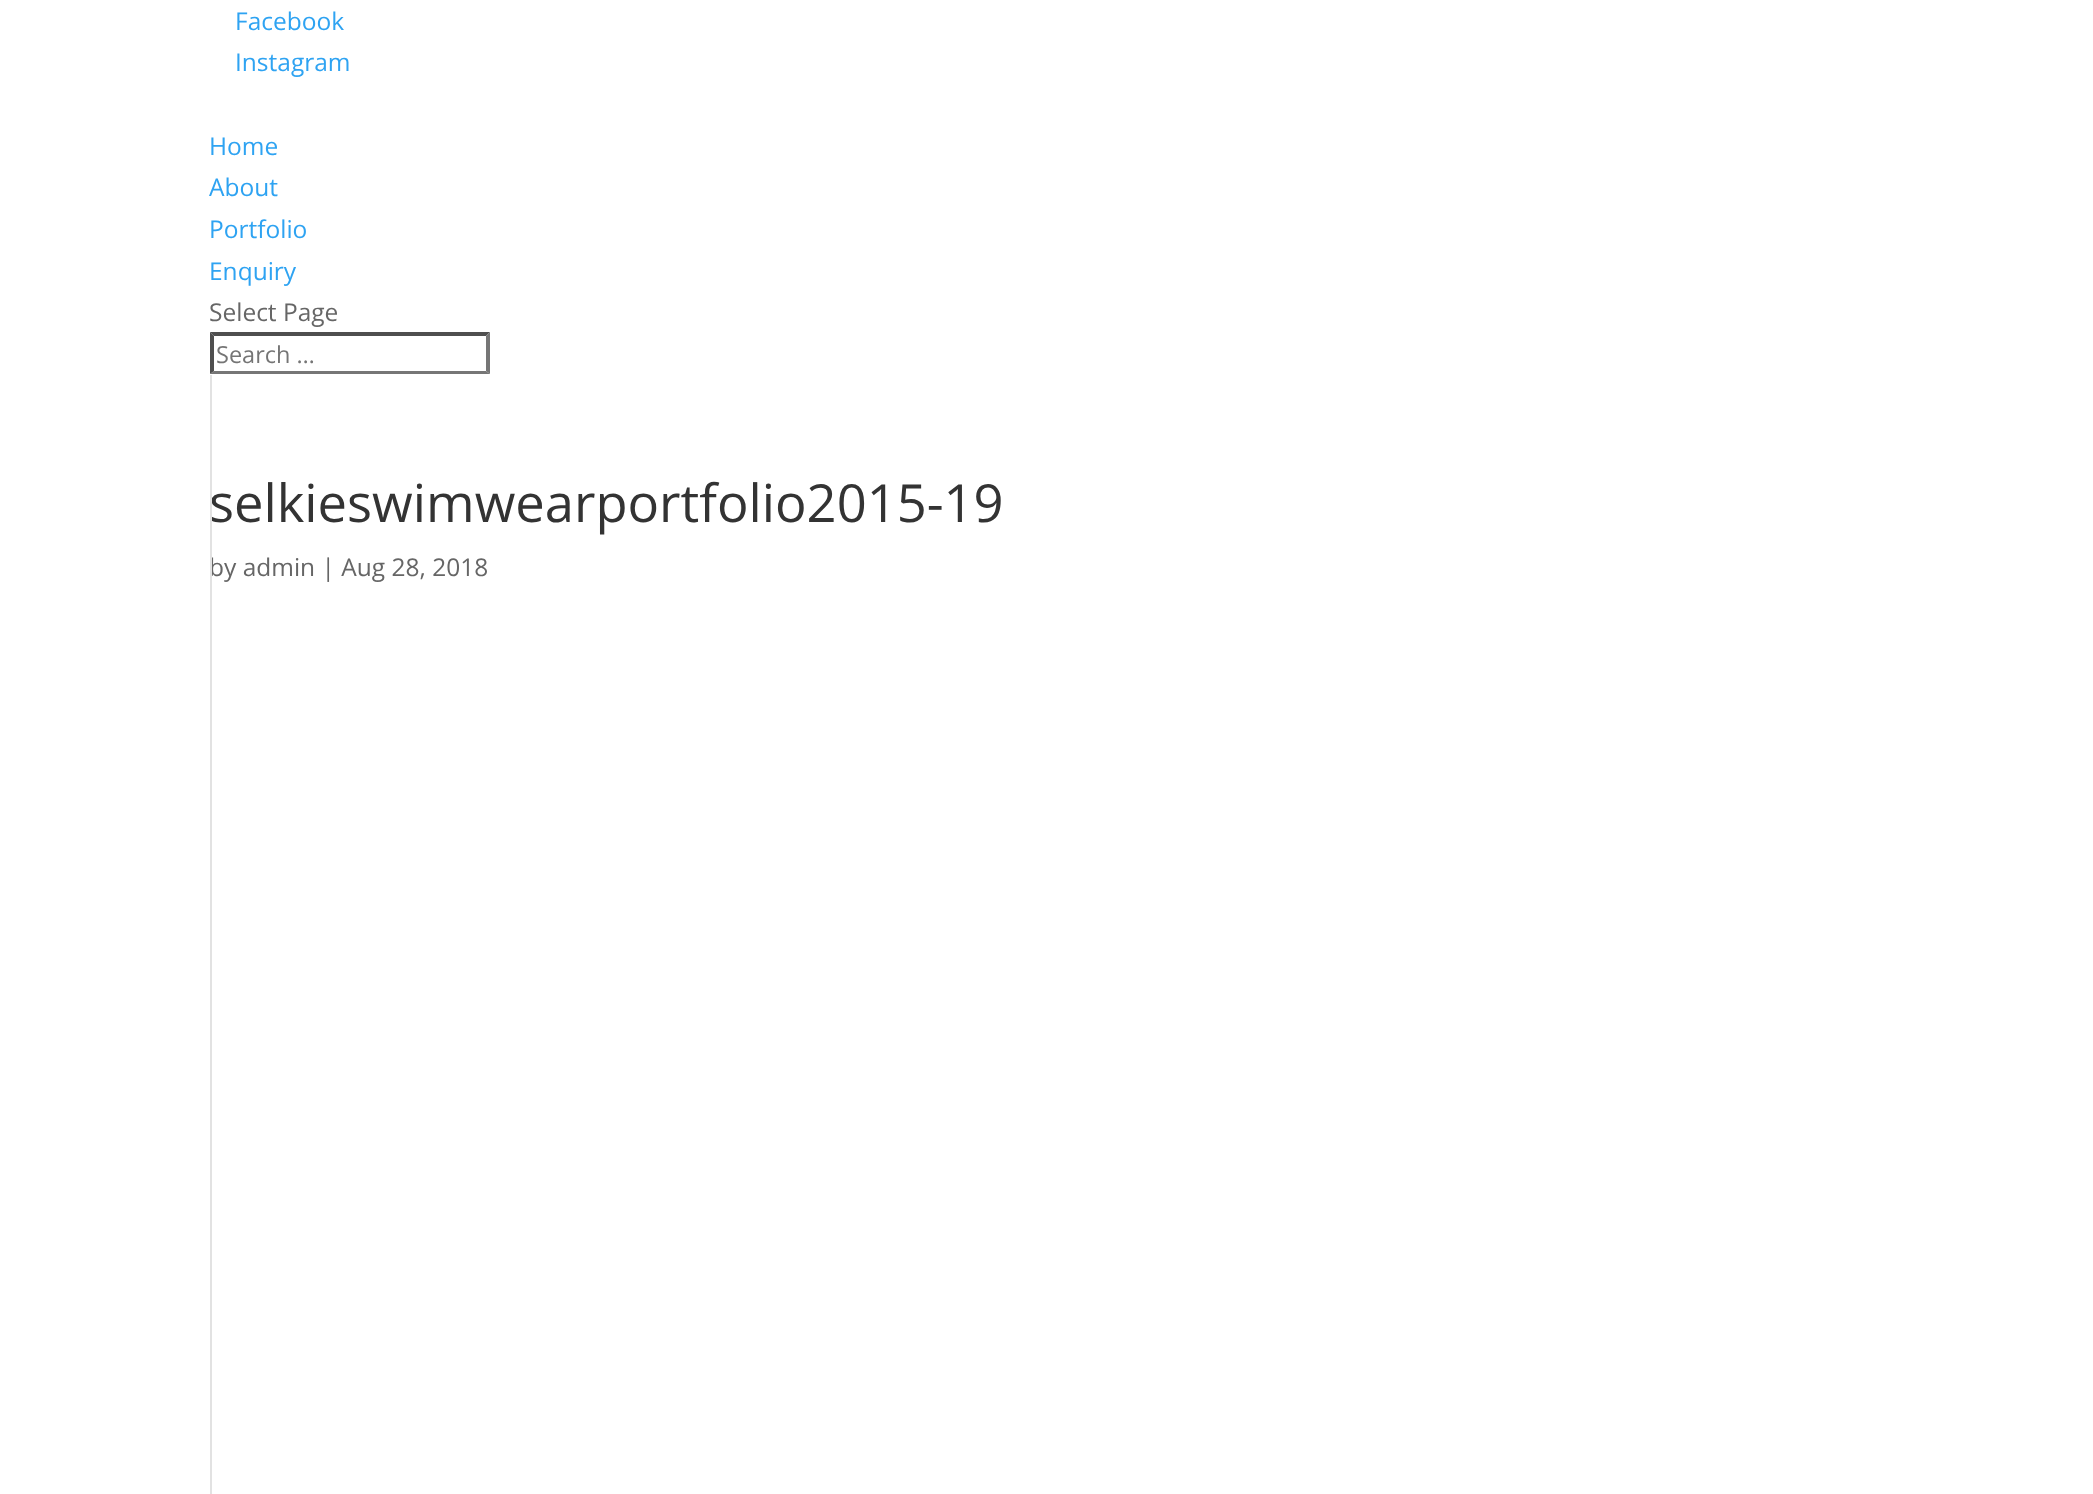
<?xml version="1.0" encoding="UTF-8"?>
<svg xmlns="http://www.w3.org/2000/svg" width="2093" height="1494">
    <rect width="100%" height="100%" fill="#FFFFFF"/>
    <text font-family="Open Sans" font-size="24.5" fill="#2EA3F2">
        <tspan x="235" y="30">Facebook</tspan>
        <tspan x="235" y="71">Instagram</tspan>
    </text>
    <text font-family="Open Sans" font-size="24.5" fill="#2EA3F2">
        <tspan x="209" y="155">Home</tspan>
        <tspan x="209" y="196">About</tspan>
        <tspan x="209" y="238">Portfolio</tspan>
        <tspan x="209" y="280">Enquiry</tspan>
    </text>
    <text x="209" y="321" font-family="Open Sans" font-size="24.5" fill="#666666">Select Page</text>
    <path d="M 210 332 H 490 L 486 336 H 214 Z" fill="#4F4F4F"/>
    <path d="M 490 332 V 374 L 486 371 V 336 Z" fill="#767676"/>
    <path d="M 490 374 H 210 L 214 371 H 486 Z" fill="#767676"/>
    <path d="M 210 374 V 332 L 214 336 V 371 Z" fill="#4F4F4F"/>
    <text x="216" y="363" font-family="Open Sans" font-size="23.5" fill="#757575">Search …</text>
    <text x="209" y="522" font-family="Open Sans" font-size="52.5" fill="#333333">selkieswimwearportfolio2015-19</text>
    <text x="209" y="576" font-family="Open Sans" font-size="24.5" fill="#666666">by admin | Aug 28, 2018</text>
    <rect x="210" y="375" width="2" height="1119" fill="#E2E2E2"/>
</svg>
